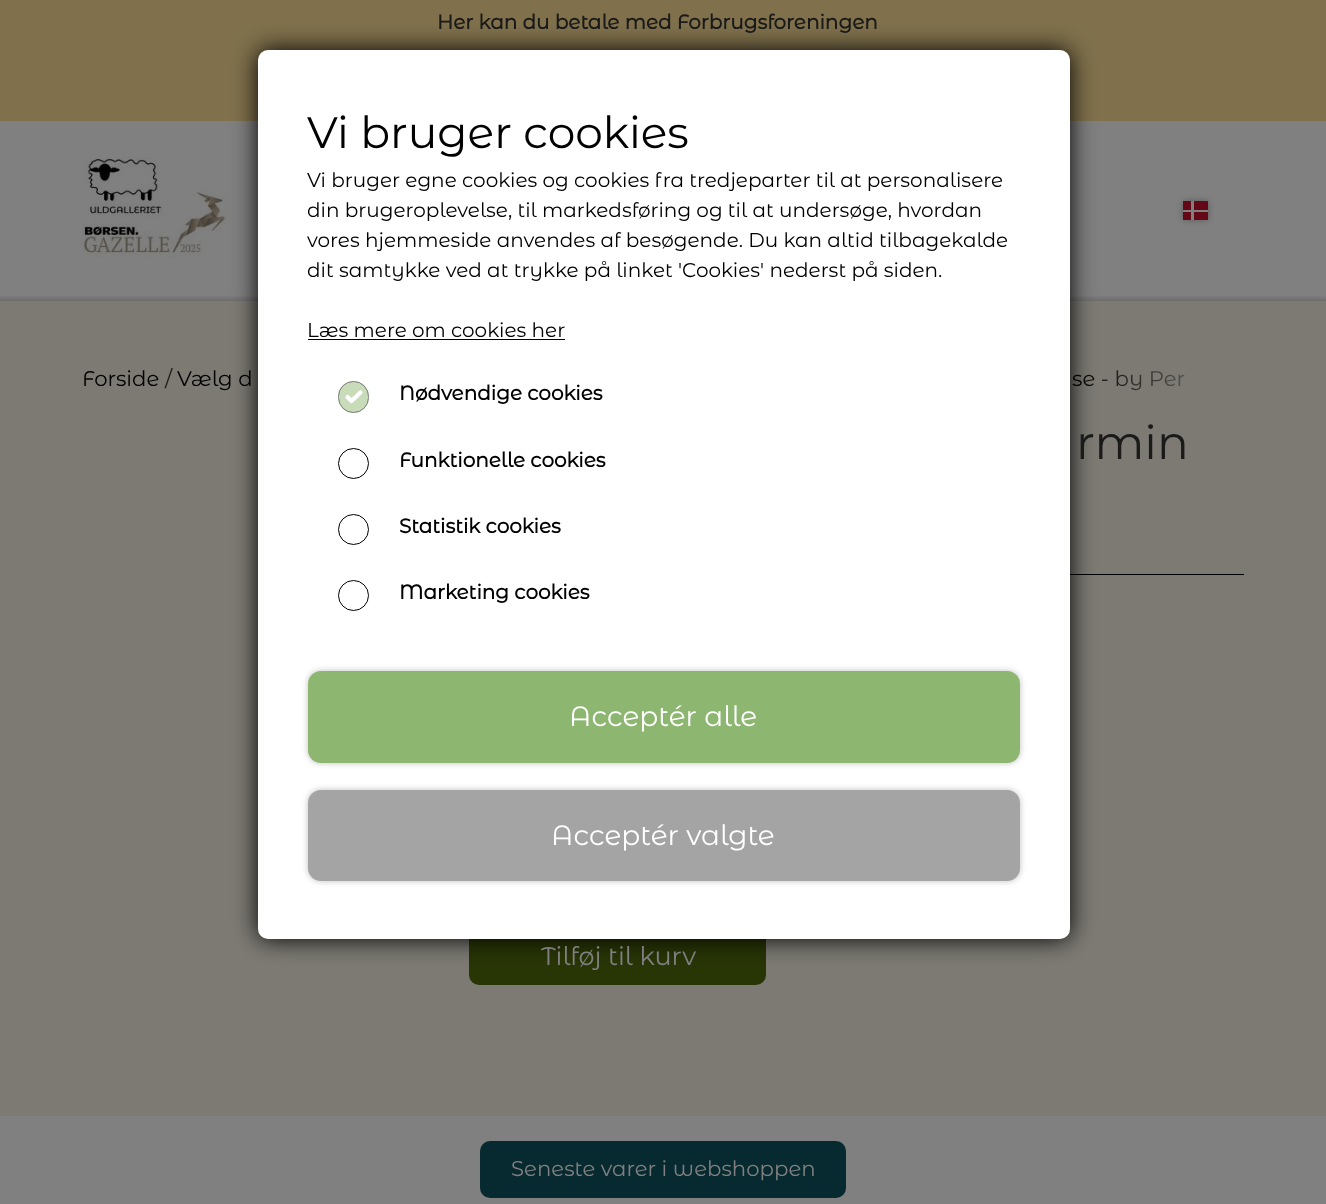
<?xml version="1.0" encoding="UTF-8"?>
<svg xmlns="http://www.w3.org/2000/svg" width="1326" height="1204">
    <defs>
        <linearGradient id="g1" gradientUnits="userSpaceOnUse" x1="663" y1="301" x2="663" y2="295"><stop offset="0" stop-color="#6D6D6D"/><stop offset="1" stop-color="#808080"/></linearGradient>
        <linearGradient id="g2" gradientUnits="userSpaceOnUse" x1="1070" y1="379" x2="1245" y2="379"><stop offset="0" stop-color="#7C7A73" stop-opacity="0"/><stop offset="1" stop-color="#7C7A73"/></linearGradient>
        <filter id="blur1" x="-50%" y="-200%" width="200%" height="500%"><feGaussianBlur stdDeviation="12.5"/></filter>
        <filter id="blur2" x="-50%" y="-200%" width="200%" height="500%"><feGaussianBlur stdDeviation="3"/></filter>
    </defs>
    <rect width="100%" height="100%" fill="#80714C"/>
    <text x="437" y="29" font-family="Montserrat Alternates" font-size="20" font-weight="700" fill="#1A1A1A">Her kan du betale med Forbrugsforeningen</text>
    <rect x="0" y="121" width="1326" height="174" fill="#808080"/>
    <image x="82" y="157" width="145" height="101" href="img_01.png"/>
    <rect x="0" y="295" width="1326" height="6" fill="url(#g1)"/>
    <rect x="0" y="301" width="1326" height="815" fill="#7C7A73"/>
    <text x="1072" y="386" font-family="Montserrat Alternates" font-size="21.25" fill="#000000">se - by Per</text>
    <rect x="1074" y="370" width="111" height="21" fill="url(#g2)"/>
    <rect x="1070" y="574" width="174" height="1" fill="#000000"/>
    <rect x="469" y="928" width="297" height="57" rx="10" fill="#283505"/>
    <rect x="258" y="50" width="812" height="889" rx="10" fill="#000000" filter="url(#blur1)"/>
    <rect x="258" y="50" width="812" height="889" rx="10" fill="#FFFFFF"/>
    <text x="307" y="148" font-family="Montserrat Alternates" font-size="44" fill="#000000">Vi bruger cookies</text>
    <text font-family="Montserrat Alternates" font-size="20" fill="#000000">
        <tspan x="307" y="187">Vi bruger egne cookies og cookies fra tredjeparter til at personalisere</tspan>
        <tspan x="307" y="217">din brugeroplevelse, til markedsføring og til at undersøge, hvordan</tspan>
        <tspan x="307" y="247">vores hjemmeside anvendes af besøgende. Du kan altid tilbagekalde</tspan>
        <tspan x="307" y="277">dit samtykke ved at trykke på linket 'Cookies' nederst på siden.</tspan>
    </text>
    <text x="307" y="337" font-family="Montserrat Alternates" font-size="20" fill="#000000">Læs mere om cookies her</text>
    <rect x="308" y="339" width="257" height="1" fill="#000000"/>
    <rect x="338" y="381" width="31" height="32" rx="15.5" fill="#C8DCBA"/>
    <path d="M 347.5 397 L 351.5 401 L 360.5 392.5" fill="none" stroke="#FFFFFF" stroke-width="4.3" stroke-linecap="round" stroke-linejoin="round"/>
    <rect x="338.5" y="381.5" width="30" height="31" rx="15" fill="none" stroke="#808080"/>
    <text x="399" y="400" font-family="Montserrat Alternates" font-size="20" font-weight="700" fill="#000000">Nødvendige cookies</text>
    <circle cx="353.5" cy="463.5" r="15" fill="none" stroke="#000000"/>
    <text x="399" y="467" font-family="Montserrat Alternates" font-size="20" font-weight="700" fill="#000000">Funktionelle cookies</text>
    <circle cx="353.5" cy="529.5" r="15" fill="none" stroke="#000000"/>
    <text x="399" y="533" font-family="Montserrat Alternates" font-size="20" font-weight="700" fill="#000000">Statistik cookies</text>
    <circle cx="353.5" cy="595.5" r="15" fill="none" stroke="#000000"/>
    <text x="399" y="599" font-family="Montserrat Alternates" font-size="20" font-weight="700" fill="#000000">Marketing cookies</text>
    <rect x="308" y="671" width="712" height="92" rx="13" fill="#000000" fill-opacity="0.25" filter="url(#blur2)"/>
    <rect x="308" y="671" width="712" height="92" rx="13" fill="#8DB671"/>
    <text x="569" y="726" font-family="Montserrat Alternates" font-size="28" fill="#FFFFFF">Acceptér alle</text>
    <rect x="308" y="790" width="712" height="91" rx="13" fill="#000000" fill-opacity="0.25" filter="url(#blur2)"/>
    <rect x="308" y="790" width="712" height="91" rx="13" fill="#A4A4A4"/>
    <text x="551" y="845" font-family="Montserrat Alternates" font-size="28" fill="#FFFFFF">Acceptér valgte</text>
    <rect x="1183" y="201" width="25" height="19" fill="#000000" fill-opacity="0.3" filter="url(#blur2)"/>
    <rect x="1183" y="201" width="25" height="19" fill="#640817"/>
    <rect x="1191" y="201" width="3" height="19" fill="#808080"/>
    <rect x="1183" y="210" width="25" height="2" fill="#808080"/>
    <text x="82" y="386" font-family="Montserrat Alternates" font-size="21.25" fill="#000000">Forside</text>
    <text x="165" y="386" font-family="Montserrat Alternates" font-size="21.25" fill="#1A1A1A">/</text>
    <text x="177" y="386" font-family="Montserrat Alternates" font-size="21.25" fill="#000000">Vælg d</text>
    <text x="1076" y="459" font-family="Montserrat Alternates" font-size="47" fill="#1A1A1A">rmin</text>
    <text x="541" y="965" font-family="Montserrat Alternates" font-size="25.5" fill="#808080">Tilføj til kurv</text>
    <rect x="0" y="1116" width="1326" height="88" fill="#808080"/>
    <rect x="480" y="1141" width="366" height="57" rx="10" fill="#062A30"/>
    <text x="511" y="1176" font-family="Montserrat Alternates" font-size="21.25" fill="#808080">Seneste varer i webshoppen</text>
</svg>
